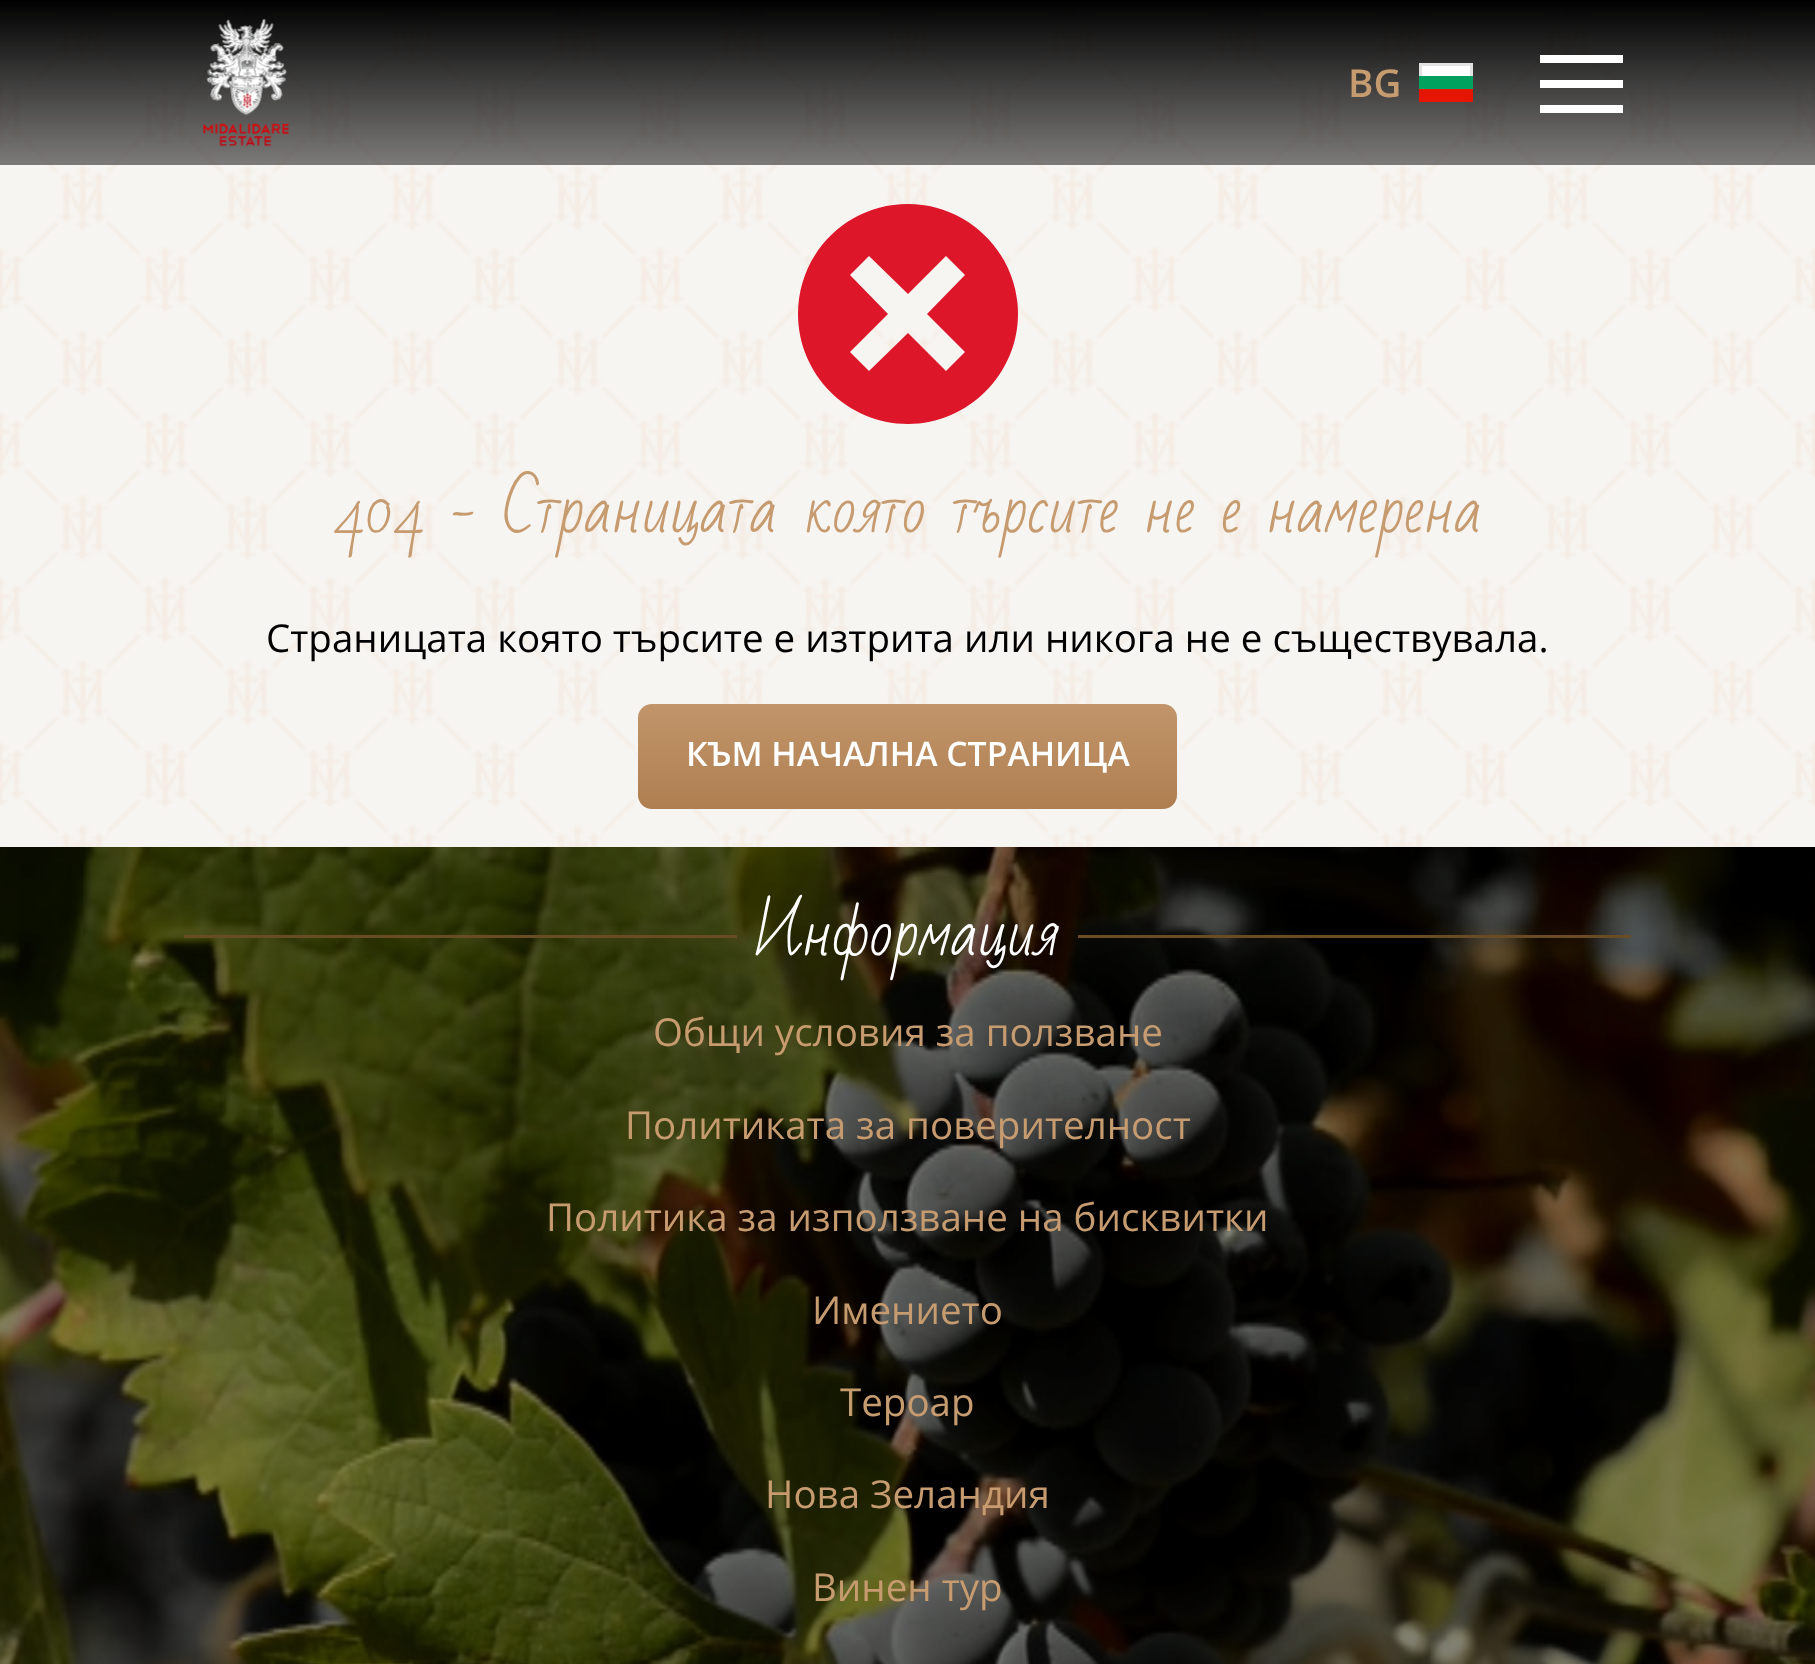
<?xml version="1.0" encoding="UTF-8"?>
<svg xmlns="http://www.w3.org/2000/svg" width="1815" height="1664">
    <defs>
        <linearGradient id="g1" gradientUnits="userSpaceOnUse" x1="908" y1="678" x2="908" y2="835"><stop offset="0" stop-color="#C69B70"/><stop offset="1" stop-color="#AA794B"/></linearGradient>
    </defs>
    <rect width="100%" height="100%" fill="#FFFFFF"/>
    <image x="0" y="0" width="1815" height="847" href="img_01.png"/>
    <image x="203" y="19" width="86" height="128" href="img_02.png"/>
    <text x="1348" y="97" font-family="Open Sans" font-size="38.5" font-weight="600" fill="#C69B70">BG</text>
    <rect x="1422" y="66" width="48" height="10" fill="#FFFFFF"/>
    <path d="M 1470 66 V 76 H 1422 V 66 H 1470 M 1473 63 H 1419 V 79 H 1473 Z" fill="#E2E2E2"/>
    <rect x="1419" y="89" width="54" height="13" fill="#E51500"/>
    <rect x="1419" y="76" width="54" height="13" fill="#00A05F"/>
    <rect x="1540" y="80" width="83" height="8" fill="#FFFFFF"/>
    <rect x="1540" y="55" width="83" height="8" fill="#FFFFFF"/>
    <rect x="1540" y="105" width="83" height="8" fill="#FFFFFF"/>
    <path d="M 908 204 C 847 204 798 253 798 314 C 798 374 847 424 908 424 C 968 424 1018 374 1018 314 C 1018 253 968 204 908 204 Z M 965 352 L 946 371 L 908 333 L 869 371 L 850 352 L 888 314 L 850 275 L 869 256 L 908 294 L 946 256 L 965 275 L 927 314 Z" fill="#DD162A"/>
    <text x="333" y="532" font-family="Bad Script" font-size="62.6" fill="#C69B70">404 - Страницата която търсите не е намерена</text>
    <text x="266" y="652" font-family="Open Sans" font-size="38.5" fill="#000000">Страницата която търсите е изтрита или никога не е съществувала.</text>
    <rect x="638" y="704" width="539" height="105" rx="14" fill="url(#g1)"/>
    <text x="686" y="766" font-family="Open Sans" font-size="33.75" font-weight="600" fill="#FFFFFF">КЪМ НАЧАЛНА СТРАНИЦА</text>
    <image x="0" y="847" width="1815" height="817" href="img_03.png"/>
    <rect x="184" y="935" width="553" height="3" fill="#6A4C24"/>
    <text x="756" y="955" font-family="Bad Script" font-size="61.5" fill="#FFFFFF">Информация</text>
    <rect x="1078" y="935" width="553" height="3" fill="#6A4C24"/>
    <text x="653" y="1046" font-family="Open Sans" font-size="38.5" fill="#C69B70">Общи условия за ползване</text>
    <text x="625" y="1139" font-family="Open Sans" font-size="38.5" fill="#C69B70">Политиката за поверителност</text>
    <text x="546" y="1231" font-family="Open Sans" font-size="38.5" fill="#C69B70">Политика за използване на бисквитки</text>
    <text x="812" y="1324" font-family="Open Sans" font-size="38.5" fill="#C69B70">Имението</text>
    <text x="840" y="1416" font-family="Open Sans" font-size="38.5" fill="#C69B70">Тероар</text>
    <text x="765" y="1508" font-family="Open Sans" font-size="38.5" fill="#C69B70">Нова Зеландия</text>
    <text x="812" y="1601" font-family="Open Sans" font-size="38.5" fill="#C69B70">Винен тур</text>
</svg>
